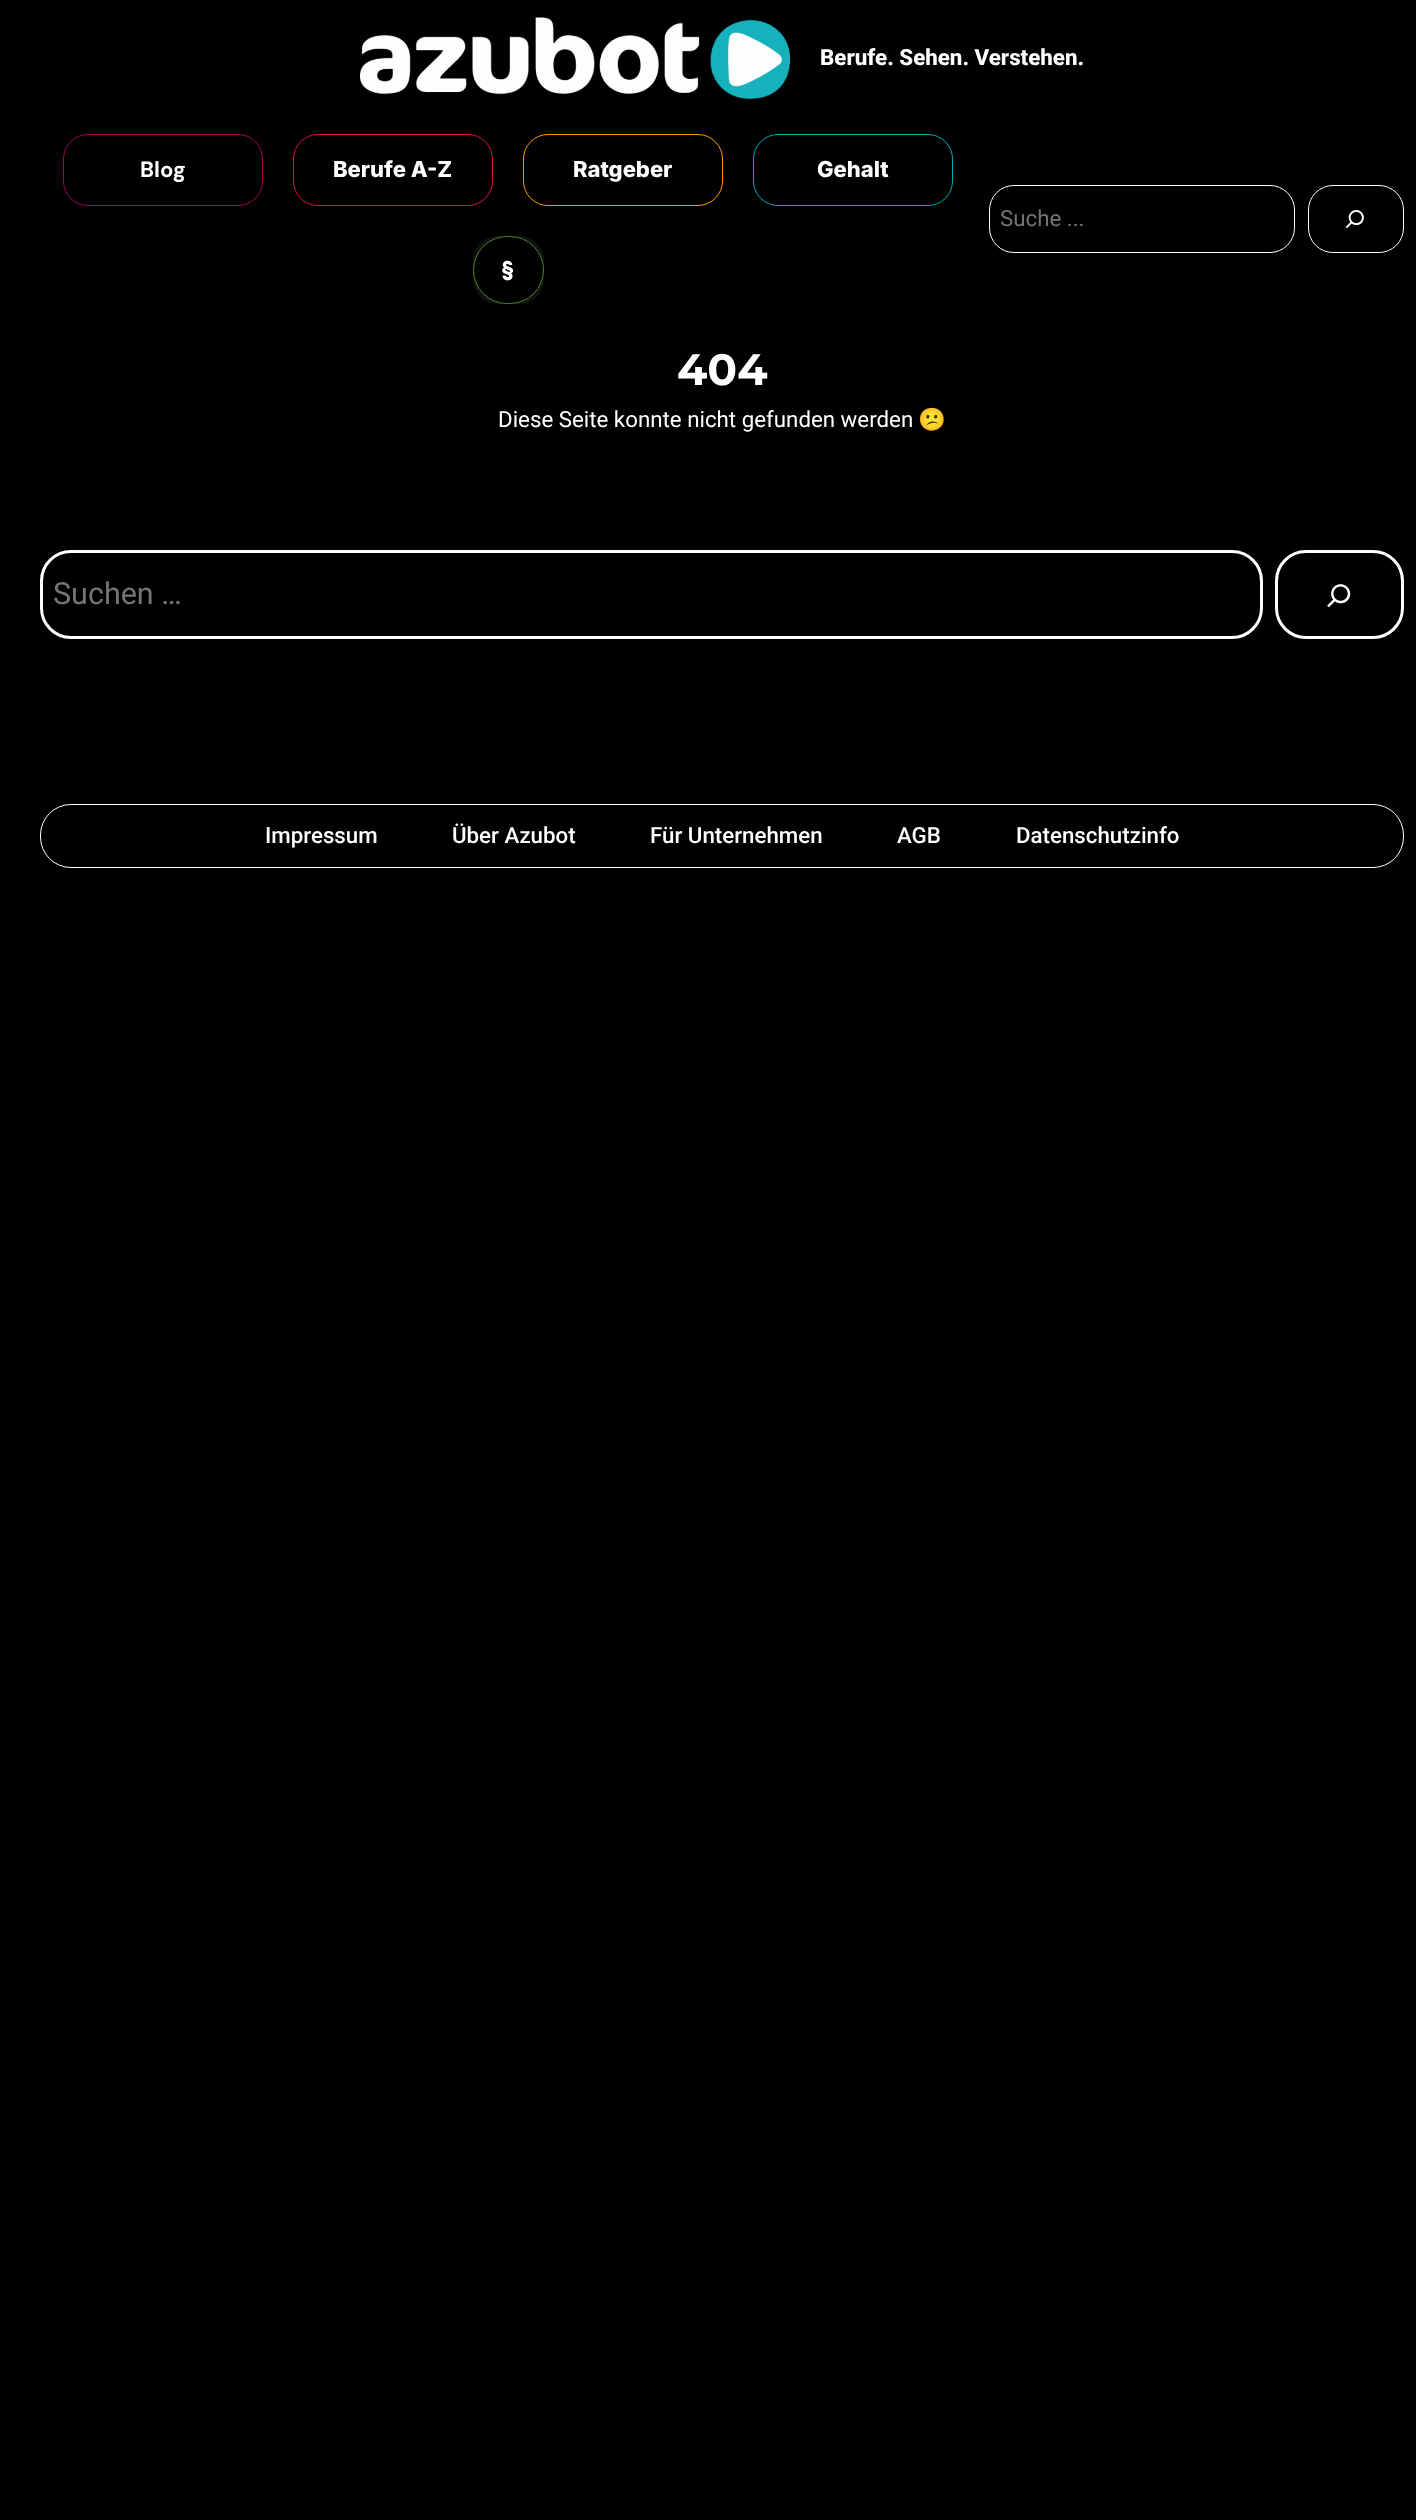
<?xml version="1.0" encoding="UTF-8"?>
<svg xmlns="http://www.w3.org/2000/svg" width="1416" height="2520">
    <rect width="100%" height="100%" fill="#000000"/>
    <image x="360" y="17" width="430" height="82" href="img_01.png"/>
    <text x="820" y="65" font-family="Roboto" font-size="22.3" font-weight="800" fill="#FFFFFF">Berufe. Sehen. Verstehen.</text>
    <rect x="63.5" y="134.5" width="199" height="71" rx="24.5" fill="none" stroke="#A50157"/>
    <text x="140" y="177" font-family="DM Sans" font-size="22" font-weight="700" fill="#FFFFFF">Blog</text>
    <rect x="293.5" y="134.5" width="199" height="71" rx="24.5" fill="none" stroke="#DE113C"/>
    <text x="333" y="177" font-family="Inter" font-size="22" font-weight="800" fill="#FFFFFF">Berufe A-Z</text>
    <rect x="523.5" y="134.5" width="199" height="71" rx="24.5" fill="none" stroke="#FF9C00"/>
    <text x="573" y="177" font-family="Inter" font-size="22" font-weight="800" fill="#FFFFFF">Ratgeber</text>
    <rect x="753.5" y="134.5" width="199" height="71" rx="24.5" fill="none" stroke="#00AAB9"/>
    <text x="817" y="177" font-family="Inter" font-size="22" font-weight="800" fill="#FFFFFF">Gehalt</text>
    <rect x="473" y="236" width="71" height="68" rx="25" fill="#111111"/>
    <rect x="473.5" y="236.5" width="70" height="67" rx="33.5" fill="#000000" stroke="#4B7F2C"/>
    <text x="501" y="277" font-family="Inter" font-size="22" font-weight="800" fill="#FFFFFF">§</text>
    <rect x="989.5" y="185.5" width="305" height="67" rx="24.5" fill="none" stroke="#FFFFFF"/>
    <text x="1000" y="226" font-family="Roboto" font-size="22.3" fill="#757575">Suche ...</text>
    <rect x="1308.5" y="185.5" width="95" height="67" rx="24.5" fill="none" stroke="#FFFFFF"/>
    <image x="1345" y="210" width="19" height="19" href="img_02.png"/>
    <text x="677" y="385" font-family="Montserrat" font-size="44" font-weight="700" fill="#FFFFFF">404</text>
    <text x="498" y="427" font-family="Roboto" font-size="22.3" fill="#FFFFFF">Diese Seite konnte nicht gefunden werden</text>
    <text x="918" y="427" font-family="Noto Color Emoji" font-size="22.3" fill="#FFFFFF">😕</text>
    <rect x="41.5" y="551.5" width="1220" height="86" rx="29.5" fill="none" stroke="#FFFFFF" stroke-width="3"/>
    <text x="53" y="604" font-family="Roboto" font-size="30.5" fill="#757575">Suchen …</text>
    <rect x="1276.5" y="551.5" width="126" height="86" rx="29.5" fill="none" stroke="#FFFFFF" stroke-width="3"/>
    <image x="1327" y="584" width="24" height="24" href="img_03.png"/>
    <rect x="40.5" y="804.5" width="1363" height="63" rx="30.5" fill="none" stroke="#FFFFFF"/>
    <text x="265" y="843" font-family="Roboto" font-size="22.3" font-weight="500" fill="#FFFFFF">Impressum</text>
    <text x="452" y="843" font-family="Roboto" font-size="22.3" font-weight="500" fill="#FFFFFF">Über Azubot</text>
    <text x="650" y="843" font-family="Roboto" font-size="22.3" font-weight="500" fill="#FFFFFF">Für Unternehmen</text>
    <text x="897" y="843" font-family="Roboto" font-size="22.3" font-weight="500" fill="#FFFFFF">AGB</text>
    <text x="1016" y="843" font-family="Roboto" font-size="22.3" font-weight="500" fill="#FFFFFF">Datenschutzinfo</text>
</svg>
